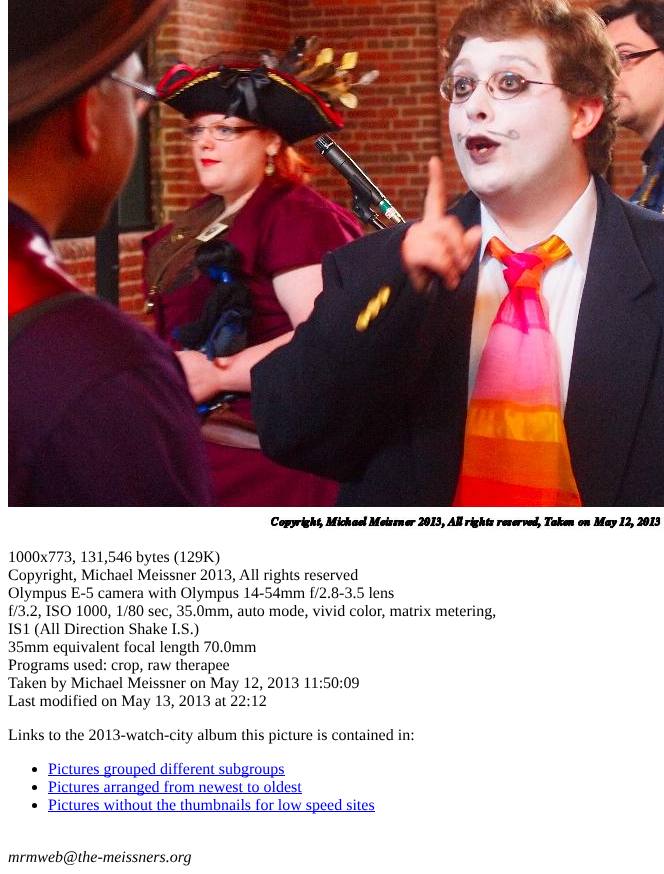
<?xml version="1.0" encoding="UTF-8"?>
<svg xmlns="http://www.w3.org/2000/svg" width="664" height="874">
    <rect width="100%" height="100%" fill="#FFFFFF"/>
    <image x="8" y="0" width="656" height="530" href="img_01.png"/>
    <text font-family="Liberation Serif" font-size="16" fill="#000000">
        <tspan x="8" y="562">1000x773, 131,546 bytes (129K)</tspan>
        <tspan x="8" y="580">Copyright, Michael Meissner 2013, All rights reserved</tspan>
        <tspan x="8" y="598">Olympus E-5 camera with Olympus 14-54mm f/2.8-3.5 lens</tspan>
        <tspan x="8" y="616">f/3.2, ISO 1000, 1/80 sec, 35.0mm, auto mode, vivid color, matrix metering,</tspan>
        <tspan x="8" y="634">IS1 (All Direction Shake I.S.)</tspan>
        <tspan x="8" y="652">35mm equivalent focal length 70.0mm</tspan>
        <tspan x="8" y="670">Programs used: crop, raw therapee</tspan>
        <tspan x="8" y="688">Taken by Michael Meissner on May 12, 2013 11:50:09</tspan>
        <tspan x="8" y="706">Last modified on May 13, 2013 at 22:12</tspan>
    </text>
    <text x="8" y="740" font-family="Liberation Serif" font-size="16" fill="#000000">Links to the 2013-watch-city album this picture is contained in:</text>
    <circle cx="34.5" cy="769.5" r="2.5" fill="#000000"/>
    <rect x="48" y="775" width="237" height="1" fill="#0000EE"/>
    <text x="48" y="774" font-family="Liberation Serif" font-size="16" fill="#0000EE">Pictures grouped different subgroups</text>
    <circle cx="34.5" cy="787.5" r="2.5" fill="#000000"/>
    <rect x="48" y="793" width="254" height="1" fill="#0000EE"/>
    <text x="48" y="792" font-family="Liberation Serif" font-size="16" fill="#0000EE">Pictures arranged from newest to oldest</text>
    <circle cx="34.5" cy="805.5" r="2.5" fill="#000000"/>
    <rect x="48" y="811" width="327" height="1" fill="#0000EE"/>
    <text x="48" y="810" font-family="Liberation Serif" font-size="16" fill="#0000EE">Pictures without the thumbnails for low speed sites</text>
    <text x="8" y="862" font-family="Liberation Serif" font-size="16" font-style="italic" fill="#000000">mrmweb@the-meissners.org</text>
</svg>
